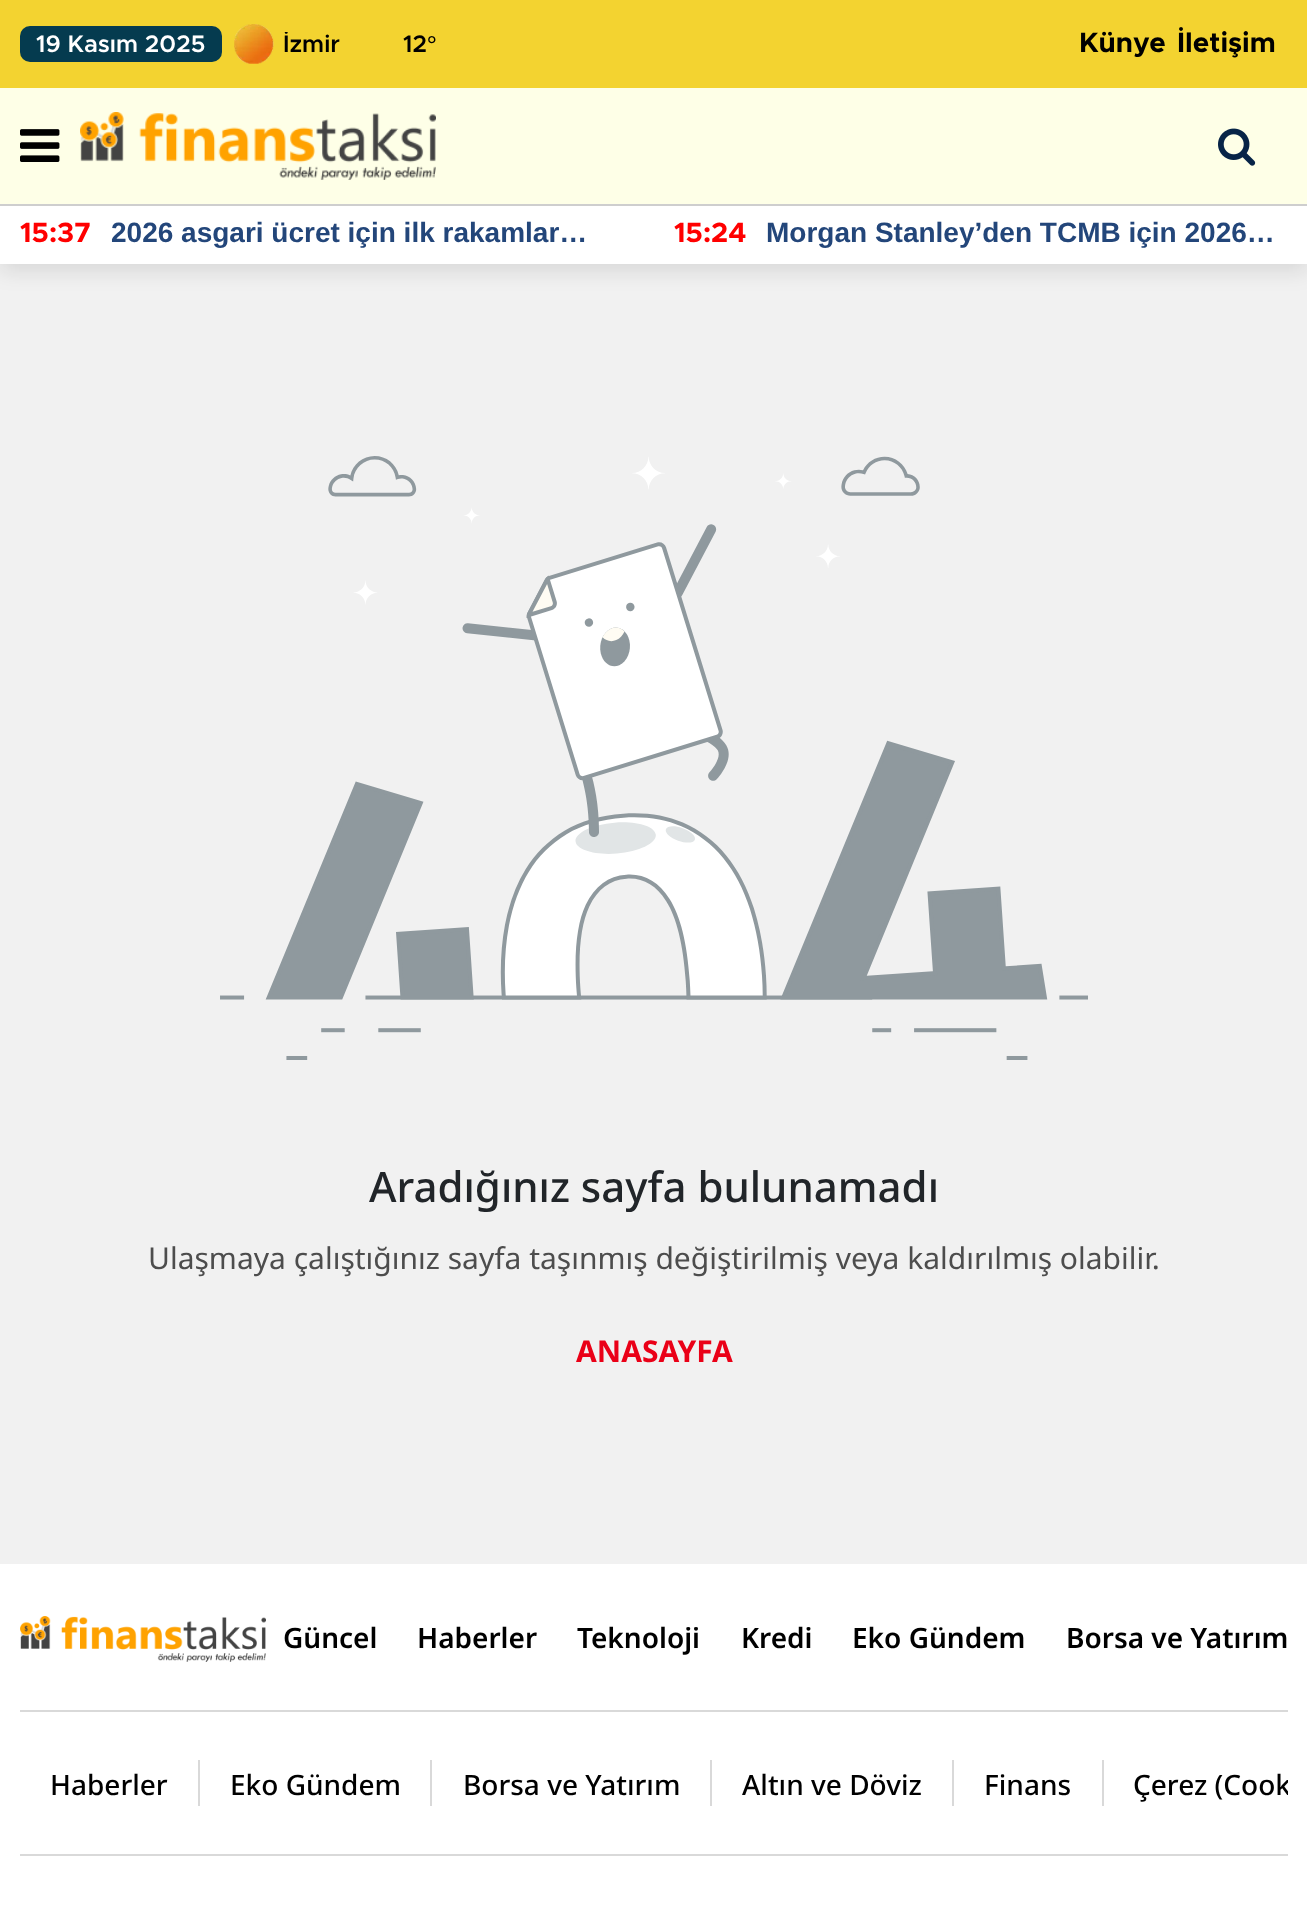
<?xml version="1.0" encoding="UTF-8"?>
<svg xmlns="http://www.w3.org/2000/svg" width="1307" height="1911">
    <defs>
        <clipPath id="clip1"><rect x="284" y="32" width="110" height="24"/></clipPath>
        <filter id="blur1" x="-50%" y="-200%" width="200%" height="500%"><feGaussianBlur stdDeviation="10"/></filter>
        <clipPath id="clip2"><rect x="20" y="1712" width="1268" height="142"/></clipPath>
    </defs>
    <rect width="100%" height="100%" fill="#F1F1F1"/>
    <rect x="0" y="0" width="1307" height="88" fill="#F3D330"/>
    <rect x="20" y="26" width="202" height="36" rx="10" fill="#053B4F"/>
    <text x="36" y="52" font-family="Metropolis" font-size="24" font-weight="600" fill="#FFFFFF">19 Kasım 2025</text>
    <image x="234" y="24" width="40" height="40" href="img_01.png"/>
    <g clip-path="url(#clip1)">
        <text x="283" y="52" font-family="Metropolis" font-size="24" font-weight="600" fill="#000000">İzmir</text>
    </g>
    <text x="403" y="52" font-family="Metropolis" font-size="24" font-weight="600" fill="#000000">12</text>
    <text x="427" y="52" font-family="Liberation Serif" font-size="24" font-weight="700" fill="#000000">°</text>
    <text x="1079" y="52" font-family="Metropolis" font-size="28" font-weight="700" fill="#000000">Künye</text>
    <text x="1177" y="52" font-family="Metropolis" font-size="28" font-weight="700" fill="#000000">İletişim</text>
    <rect x="0" y="212" width="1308" height="60" fill="#000000" fill-opacity="0.1" filter="url(#blur1)"/>
    <rect x="0" y="88" width="1307" height="116" fill="#FEFFE7"/>
    <image x="20" y="129" width="40" height="33" href="img_02.png"/>
    <image x="80" y="112" width="356" height="68" href="img_03.png"/>
    <image x="1218" y="128" width="38" height="38" href="img_04.png"/>
    <rect x="0" y="206" width="1307" height="58" fill="#FFFFFF"/>
    <rect x="0" y="204" width="1307" height="2" fill="#CECECE"/>
    <text x="20" y="242" font-family="Metropolis" font-size="28" font-weight="700" fill="#FF0000">15:37</text>
    <text x="111" y="242" font-family="Liberation Sans" font-size="28" font-weight="700" fill="#23467A">2026 asgari ücret için ilk rakamlar…</text>
    <text x="674" y="242" font-family="Metropolis" font-size="28" font-weight="700" fill="#FF0000">15:24</text>
    <text x="766" y="242" font-family="Liberation Sans" font-size="28" font-weight="700" fill="#23467A">Morgan Stanley’den TCMB için 2026…</text>
    <image x="220" y="456" width="868" height="604" href="img_05.png"/>
    <text x="369" y="1202" font-family="Noto Sans" font-size="42" font-weight="500" fill="#212529">Aradığınız sayfa bulunamadı</text>
    <text x="148" y="1269" font-family="Noto Sans" font-size="30" fill="#4D4D4D">Ulaşmaya çalıştığınız sayfa taşınmış değiştirilmiş veya kaldırılmış olabilir.</text>
    <text x="576" y="1362" font-family="Noto Sans" font-size="30" font-weight="700" fill="#EA0017">ANASAYFA</text>
    <rect x="0" y="1564" width="1307" height="347" fill="#FFFFFF"/>
    <rect x="20" y="1710" width="1268" height="2" fill="#D9D9D9"/>
    <image x="20" y="1616" width="246" height="46" href="img_06.png"/>
    <text x="283" y="1648" font-family="Noto Sans" font-size="28" font-weight="600" fill="#000000">Güncel</text>
    <text x="417" y="1648" font-family="Noto Sans" font-size="28" font-weight="600" fill="#000000">Haberler</text>
    <text x="577" y="1648" font-family="Noto Sans" font-size="28" font-weight="600" fill="#000000">Teknoloji</text>
    <text x="741" y="1648" font-family="Noto Sans" font-size="28" font-weight="600" fill="#000000">Kredi</text>
    <text x="852" y="1648" font-family="Noto Sans" font-size="28" font-weight="600" fill="#000000">Eko Gündem</text>
    <text x="1066" y="1648" font-family="Noto Sans" font-size="28" font-weight="600" fill="#000000">Borsa ve Yatırım</text>
    <rect x="20" y="1854" width="1268" height="2" fill="#D9D9D9"/>
    <rect x="198" y="1760" width="2" height="46" fill="#D9D9D9"/>
    <text x="50" y="1795" font-family="Noto Sans" font-size="28" font-weight="500" fill="#000000">Haberler</text>
    <rect x="430" y="1760" width="2" height="46" fill="#D9D9D9"/>
    <text x="230" y="1795" font-family="Noto Sans" font-size="28" font-weight="500" fill="#000000">Eko Gündem</text>
    <rect x="710" y="1760" width="2" height="46" fill="#D9D9D9"/>
    <text x="463" y="1795" font-family="Noto Sans" font-size="28" font-weight="500" fill="#000000">Borsa ve Yatırım</text>
    <rect x="952" y="1760" width="2" height="46" fill="#D9D9D9"/>
    <text x="742" y="1795" font-family="Noto Sans" font-size="28" font-weight="500" fill="#000000">Altın ve Döviz</text>
    <rect x="1102" y="1760" width="2" height="46" fill="#D9D9D9"/>
    <text x="984" y="1795" font-family="Noto Sans" font-size="28" font-weight="500" fill="#000000">Finans</text>
    <g clip-path="url(#clip2)">
        <text x="1133" y="1795" font-family="Noto Sans" font-size="28" font-weight="500" fill="#000000">Çerez (Cook</text>
    </g>
</svg>
